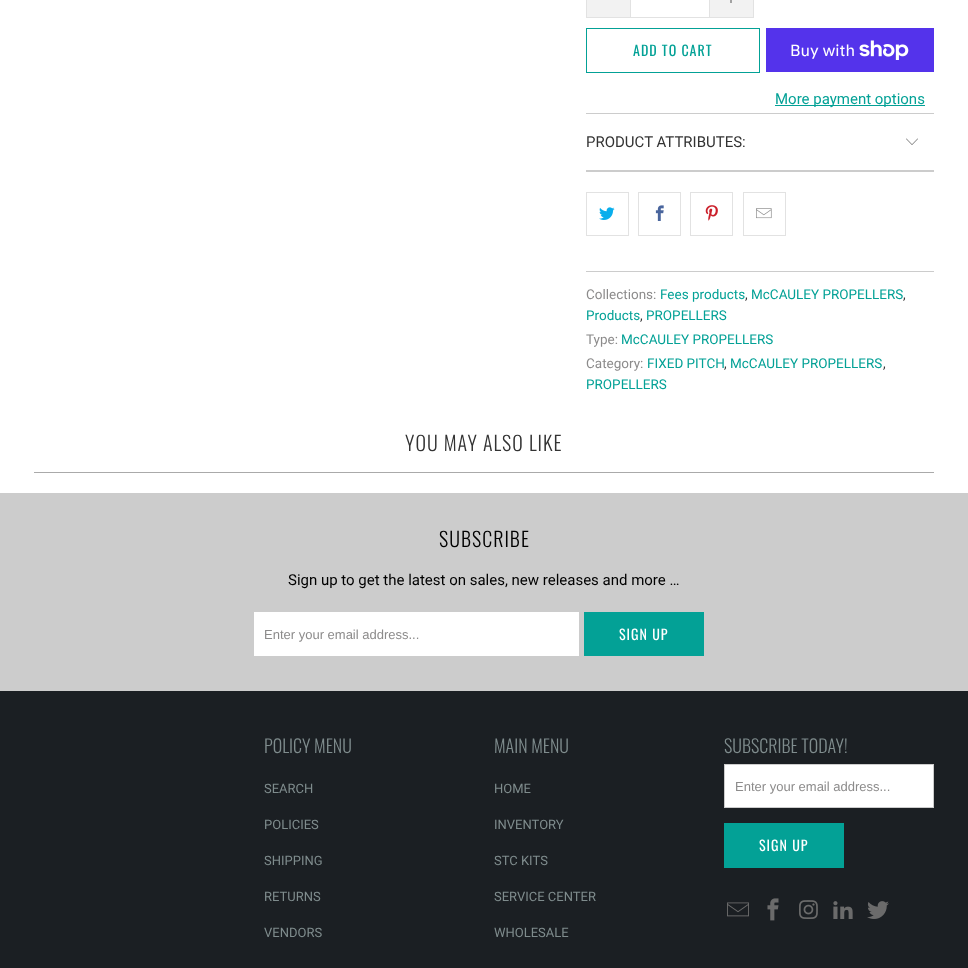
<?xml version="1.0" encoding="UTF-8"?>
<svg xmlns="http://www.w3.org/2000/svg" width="968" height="968">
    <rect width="100%" height="100%" fill="#FFFFFF"/>
    <rect x="587" y="0" width="43" height="17" fill="#F2F2F2"/>
    <rect x="586" y="17" width="44" height="1" fill="#E2E2E2"/>
    <rect x="586" y="0" width="1" height="18" fill="#E2E2E2"/>
    <rect x="630.5" y="-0.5" width="79" height="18" fill="none" stroke="#E2E2E2"/>
    <rect x="710" y="0" width="43" height="17" fill="#F2F2F2"/>
    <rect x="753" y="0" width="1" height="18" fill="#E2E2E2"/>
    <rect x="710" y="17" width="44" height="1" fill="#E2E2E2"/>
    <rect x="730" y="0" width="2" height="3" fill="#A2A2A2"/>
    <rect x="586.5" y="28.5" width="173" height="44" fill="none" stroke="#03A196"/>
    <text x="633" y="56" font-family="Oswald" font-size="14" letter-spacing="1" fill="#03A196">ADD TO CART</text>
    <rect x="766" y="28" width="168" height="44" fill="#5433EB"/>
    <text x="790" y="56" font-family="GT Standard" font-size="16" fill="#FFFFFF">Buy with</text>
    <image x="859" y="40" width="50" height="20" href="img_01.png"/>
    <rect x="775" y="105" width="150" height="1" fill="#03A196"/>
    <text x="775" y="104" font-family="Roboto" font-size="15" fill="#03A196">More payment options</text>
    <rect x="586" y="113" width="348" height="1" fill="#CCCCCC"/>
    <rect x="586" y="170" width="348" height="2" fill="#CCCCCC"/>
    <text x="586" y="147" font-family="Roboto" font-size="15" fill="#333333">PRODUCT ATTRIBUTES:</text>
    <image x="906" y="138" width="12" height="7" href="img_02.png"/>
    <rect x="586.5" y="192.5" width="42" height="43" fill="none" stroke="#E2E2E2"/>
    <image x="599" y="207" width="16" height="13" href="img_03.png"/>
    <rect x="638.5" y="192.5" width="42" height="43" fill="none" stroke="#E2E2E2"/>
    <image x="655" y="205" width="9" height="16" href="img_04.png"/>
    <rect x="690.5" y="192.5" width="42" height="43" fill="none" stroke="#E2E2E2"/>
    <image x="705" y="205" width="13" height="16" href="img_05.png"/>
    <rect x="743.5" y="192.5" width="42" height="43" fill="none" stroke="#E2E2E2"/>
    <image x="756" y="208" width="16" height="11" href="img_06.png"/>
    <rect x="586" y="271" width="348" height="1" fill="#CCCCCC"/>
    <text x="586" y="299" font-family="Roboto" font-size="13.5" fill="#8C8B8B">Collections:</text>
    <text x="745" y="299" font-family="Roboto" font-size="13.5" fill="#333333">,</text>
    <text x="660" y="299" font-family="Roboto" font-size="13.5" fill="#03A196">Fees products</text>
    <text x="751" y="299" font-family="Roboto" font-size="13.5" fill="#03A196">McCAULEY PROPELLERS</text>
    <text x="903" y="299" font-family="Roboto" font-size="13.5" fill="#333333">,</text>
    <text x="586" y="320" font-family="Roboto" font-size="13.5" fill="#03A196">Products</text>
    <text x="640" y="320" font-family="Roboto" font-size="13.5" fill="#333333">,</text>
    <text x="646" y="320" font-family="Roboto" font-size="13.5" fill="#03A196">PROPELLERS</text>
    <text x="586" y="344" font-family="Roboto" font-size="13.5" fill="#8C8B8B">Type:</text>
    <text x="621" y="344" font-family="Roboto" font-size="13.5" fill="#03A196">McCAULEY PROPELLERS</text>
    <text x="586" y="368" font-family="Roboto" font-size="13.5" fill="#8C8B8B">Category:</text>
    <text x="647" y="368" font-family="Roboto" font-size="13.5" fill="#03A196">FIXED PITCH</text>
    <text x="724" y="368" font-family="Roboto" font-size="13.5" fill="#333333">,</text>
    <text x="883" y="368" font-family="Roboto" font-size="13.5" fill="#333333">,</text>
    <text x="730" y="368" font-family="Roboto" font-size="13.5" fill="#03A196">McCAULEY PROPELLERS</text>
    <text x="586" y="389" font-family="Roboto" font-size="13.5" fill="#03A196">PROPELLERS</text>
    <text x="405" y="451" font-family="Oswald" font-size="20" font-weight="300" letter-spacing="1" fill="#333333">YOU MAY ALSO LIKE</text>
    <rect x="34" y="472" width="900" height="1" fill="#AAAAAA"/>
    <rect x="0" y="493" width="968" height="198" fill="#CCCCCC"/>
    <text x="439" y="547" font-family="Oswald" font-size="20" font-weight="300" letter-spacing="1" fill="#000000">SUBSCRIBE</text>
    <text x="288" y="585" font-family="Roboto" font-size="15" fill="#000000">Sign up to get the latest on sales, new releases and more …</text>
    <rect x="254" y="612" width="325" height="44" fill="#FFFFFF"/>
    <text x="264" y="639" font-family="Liberation Sans" font-size="13" fill="#8C8B8B">Enter your email address...</text>
    <rect x="584" y="612" width="120" height="44" fill="#03A196"/>
    <text x="619" y="640" font-family="Oswald" font-size="14" letter-spacing="1" fill="#FFFFFF">SIGN UP</text>
    <rect x="0" y="691" width="968" height="277" fill="#1B1F23"/>
    <text x="264" y="753" font-family="Oswald" font-size="18" font-weight="300" fill="#7F8C8D">POLICY MENU</text>
    <text x="264" y="793" font-family="Roboto" font-size="13" fill="#7F8C8D">SEARCH</text>
    <text x="264" y="829" font-family="Roboto" font-size="13" fill="#7F8C8D">POLICIES</text>
    <text x="264" y="865" font-family="Roboto" font-size="13" fill="#7F8C8D">SHIPPING</text>
    <text x="264" y="901" font-family="Roboto" font-size="13" fill="#7F8C8D">RETURNS</text>
    <text x="264" y="937" font-family="Roboto" font-size="13" fill="#7F8C8D">VENDORS</text>
    <text x="494" y="753" font-family="Oswald" font-size="18" font-weight="300" fill="#7F8C8D">MAIN MENU</text>
    <text x="494" y="793" font-family="Roboto" font-size="13" fill="#7F8C8D">HOME</text>
    <text x="494" y="829" font-family="Roboto" font-size="13" fill="#7F8C8D">INVENTORY</text>
    <text x="494" y="865" font-family="Roboto" font-size="13" fill="#7F8C8D">STC KITS</text>
    <text x="494" y="901" font-family="Roboto" font-size="13" fill="#7F8C8D">SERVICE CENTER</text>
    <text x="494" y="937" font-family="Roboto" font-size="13" fill="#7F8C8D">WHOLESALE</text>
    <text x="724" y="753" font-family="Oswald" font-size="18" font-weight="300" fill="#7F8C8D">SUBSCRIBE TODAY!</text>
    <rect x="724.5" y="764.5" width="209" height="43" fill="#FFFFFF" stroke="#CCCCCC"/>
    <text x="735" y="791" font-family="Liberation Sans" font-size="13" fill="#8C8B8B">Enter your email address...</text>
    <rect x="724" y="823" width="120" height="45" fill="#03A196"/>
    <text x="759" y="851" font-family="Oswald" font-size="14" letter-spacing="1" fill="#FFFFFF">SIGN UP</text>
    <image x="727" y="902" width="22" height="15" href="img_07.png"/>
    <image x="767" y="898" width="12" height="23" href="img_08.png"/>
    <image x="799" y="900" width="19" height="19" href="img_09.png"/>
    <image x="833" y="901" width="20" height="18" href="img_10.png"/>
    <image x="867" y="901" width="22" height="18" href="img_11.png"/>
</svg>
